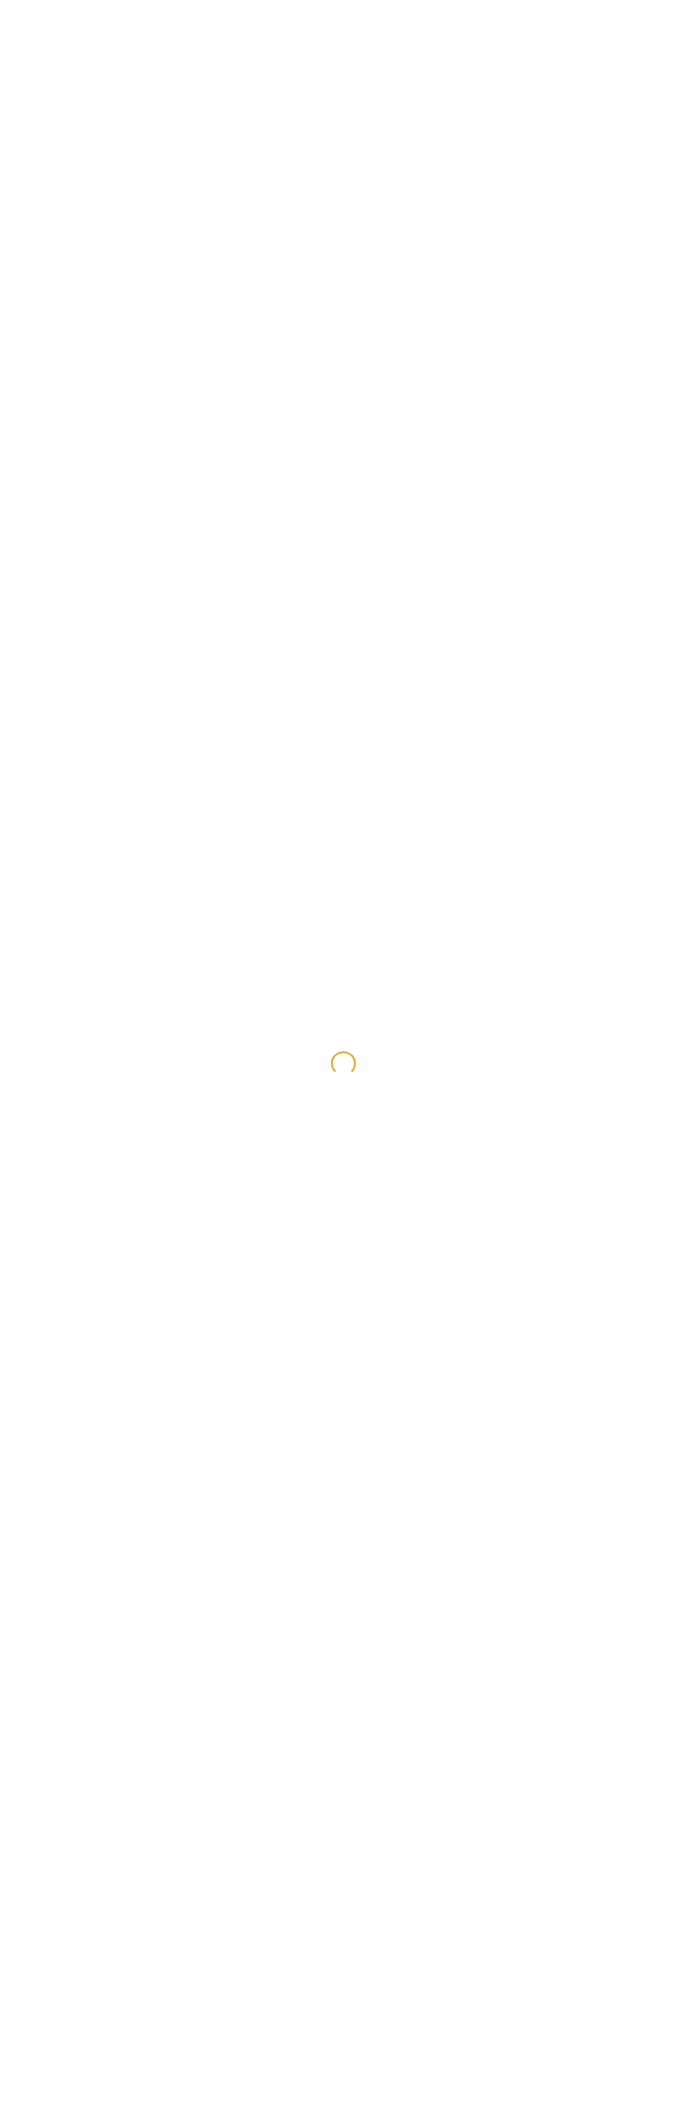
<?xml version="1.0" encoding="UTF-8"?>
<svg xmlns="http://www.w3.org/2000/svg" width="687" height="2102">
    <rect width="100%" height="100%" fill="#FFFFFF"/>
    <path d="M 335.5 1071.5 C 332.5 1069 331.5 1065 332 1061 C 335 1048 355 1050 355 1063.5 C 355 1066.5 354 1069.5 351.5 1071.5" fill="none" stroke="#E2B13C" stroke-width="2"/>
</svg>
